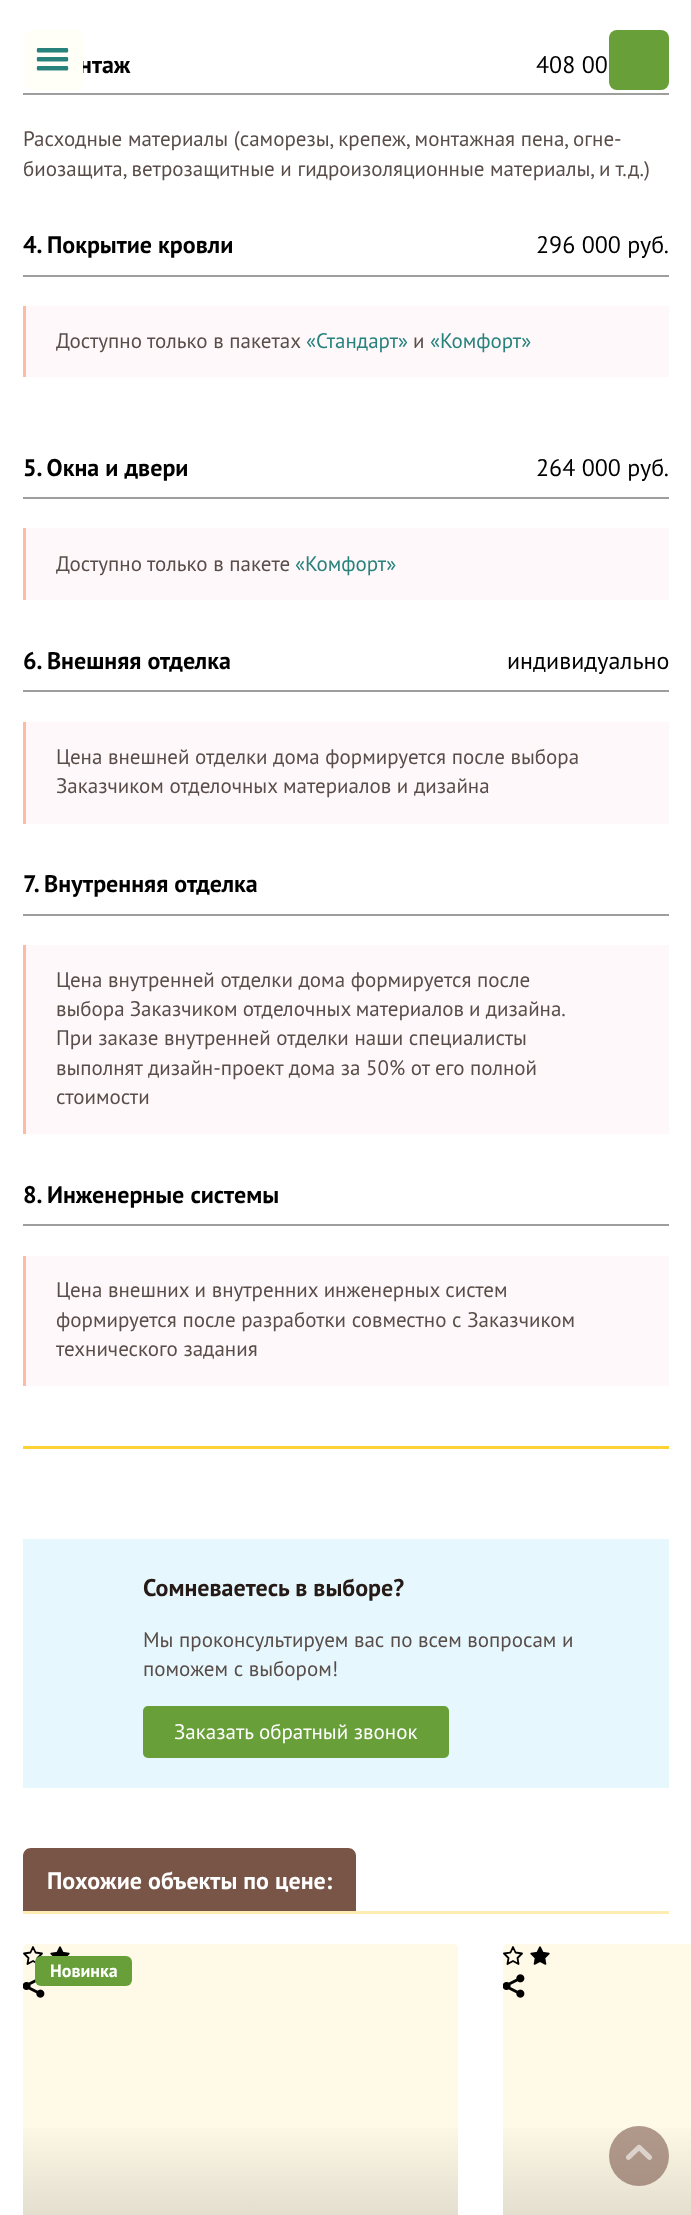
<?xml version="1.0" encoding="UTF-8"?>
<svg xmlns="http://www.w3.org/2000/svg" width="691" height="2215">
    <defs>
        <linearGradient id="g1" gradientUnits="userSpaceOnUse" x1="240" y1="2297" x2="240" y2="2006"><stop offset="0" stop-color="#CCC7B9"/><stop offset="0.61" stop-color="#FFF9E7"/></linearGradient>
        <linearGradient id="g2" gradientUnits="userSpaceOnUse" x1="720" y1="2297" x2="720" y2="2006"><stop offset="0" stop-color="#CCC7B9"/><stop offset="0.61" stop-color="#FFF9E7"/></linearGradient>
    </defs>
    <rect width="100%" height="100%" fill="#FFFFFF"/>
    <text x="79" y="73" font-family="PT Sans" font-size="24" font-weight="700" fill="#000000">нтаж</text>
    <rect x="23" y="30" width="60" height="60" rx="8" fill="#FFFEF7"/>
    <image x="36" y="48" width="33" height="23" href="img_01.png"/>
    <rect x="609" y="30" width="60" height="60" rx="8" fill="#689F38"/>
    <rect x="23" y="1446" width="646" height="3" fill="#FFD233"/>
    <rect x="23" y="93" width="646" height="2" fill="#9E9E9E"/>
    <text x="536" y="73" font-family="PT Sans" font-size="24" fill="#000000">408 00</text>
    <text font-family="PT Sans" font-size="21" fill="#584D49">
        <tspan x="23" y="146">Расходные материалы (саморезы, крепеж, монтажная пена, огне-</tspan>
        <tspan x="23" y="176">биозащита, ветрозащитные и гидроизоляционные материалы, и т.д.)</tspan>
    </text>
    <rect x="23" y="275" width="646" height="2" fill="#9E9E9E"/>
    <text x="23" y="253" font-family="PT Sans" font-size="24" font-weight="700" fill="#000000">4. Покрытие кровли</text>
    <text x="536" y="253" font-family="PT Sans" font-size="24" fill="#000000">296 000 руб.</text>
    <rect x="26" y="306" width="643" height="71" fill="#FEF8FA"/>
    <rect x="23" y="306" width="3" height="71" fill="#FFBAA2"/>
    <text x="56" y="348" font-family="PT Sans" font-size="21" fill="#584D49">Доступно только в пакетах</text>
    <text x="306" y="348" font-family="PT Sans" font-size="21" fill="#28827C">«Стандарт»</text>
    <text x="413" y="348" font-family="PT Sans" font-size="21" fill="#584D49">и</text>
    <text x="430" y="348" font-family="PT Sans" font-size="21" fill="#28827C">«Комфорт»</text>
    <rect x="23" y="497" width="646" height="2" fill="#9E9E9E"/>
    <text x="23" y="476" font-family="PT Sans" font-size="24" font-weight="700" fill="#000000">5. Окна и двери</text>
    <text x="536" y="476" font-family="PT Sans" font-size="24" fill="#000000">264 000 руб.</text>
    <rect x="26" y="528" width="643" height="72" fill="#FEF8FA"/>
    <rect x="23" y="528" width="3" height="72" fill="#FFBAA2"/>
    <text x="56" y="571" font-family="PT Sans" font-size="21" fill="#584D49">Доступно только в пакете</text>
    <text x="295" y="571" font-family="PT Sans" font-size="21" fill="#28827C">«Комфорт»</text>
    <rect x="23" y="690" width="646" height="2" fill="#9E9E9E"/>
    <text x="23" y="669" font-family="PT Sans" font-size="24" font-weight="700" fill="#000000">6. Внешняя отделка</text>
    <text x="507" y="669" font-family="PT Sans" font-size="24" fill="#000000">индивидуально</text>
    <rect x="26" y="722" width="643" height="102" fill="#FEF8FA"/>
    <rect x="23" y="722" width="3" height="102" fill="#FFBAA2"/>
    <text font-family="PT Sans" font-size="21" fill="#584D49">
        <tspan x="56" y="764">Цена внешней отделки дома формируется после выбора</tspan>
        <tspan x="56" y="793">Заказчиком отделочных материалов и дизайна</tspan>
    </text>
    <rect x="23" y="914" width="646" height="2" fill="#9E9E9E"/>
    <text x="23" y="892" font-family="PT Sans" font-size="24" font-weight="700" fill="#000000">7. Внутренняя отделка</text>
    <rect x="26" y="945" width="643" height="189" fill="#FFF8FA"/>
    <rect x="23" y="945" width="3" height="189" fill="#FFBAA2"/>
    <text font-family="PT Sans" font-size="21" fill="#584D49">
        <tspan x="56" y="987">Цена внутренней отделки дома формируется после</tspan>
        <tspan x="56" y="1016" word-spacing="-0.5">выбора Заказчиком отделочных материалов и дизайна.</tspan>
        <tspan x="56" y="1045">При заказе внутренней отделки наши специалисты</tspan>
        <tspan x="56" y="1075">выполнят дизайн-проект дома за 50% от его полной</tspan>
        <tspan x="56" y="1104">стоимости</tspan>
    </text>
    <rect x="23" y="1224" width="646" height="2" fill="#9E9E9E"/>
    <text x="23" y="1203" font-family="PT Sans" font-size="24" font-weight="700" fill="#000000">8. Инженерные системы</text>
    <rect x="26" y="1256" width="643" height="130" fill="#FEF8FA"/>
    <rect x="23" y="1256" width="3" height="130" fill="#FFBAA2"/>
    <text font-family="PT Sans" font-size="21" fill="#584D49">
        <tspan x="56" y="1297">Цена внешних и внутренних инженерных систем</tspan>
        <tspan x="56" y="1327">формируется после разработки совместно с Заказчиком</tspan>
        <tspan x="56" y="1356">технического задания</tspan>
    </text>
    <rect x="23" y="1539" width="646" height="249" fill="#E6F7FE"/>
    <text x="143" y="1596" font-family="PT Sans" font-size="24" font-weight="700" fill="#251A16">Сомневаетесь в выборе?</text>
    <text font-family="PT Sans" font-size="21" fill="#584D49">
        <tspan x="143" y="1647">Мы проконсультируем вас по всем вопросам и</tspan>
        <tspan x="143" y="1676">поможем с выбором!</tspan>
    </text>
    <rect x="143" y="1706" width="306" height="52" rx="5" fill="#689F38"/>
    <text x="174" y="1739" font-family="PT Sans" font-size="21" fill="#FFFFFF">Заказать обратный звонок</text>
    <path d="M 31 1848 H 348 C 352.5 1848 356 1851.5 356 1856 V 1911 H 23 V 1856 C 23 1851.5 26.5 1848 31 1848 Z" fill="#795548"/>
    <text x="47" y="1889" font-family="PT Sans" font-size="24" font-weight="700" fill="#FFFFFF">Похожие объекты по цене:</text>
    <rect x="23" y="1911" width="646" height="3" fill="#FFECB3"/>
    <path d="M 28 1944 H 453 C 456 1944 458 1946 458 1949 V 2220 H 23 V 1949 C 23 1946 25 1944 28 1944 Z" fill="#FFF9E7"/>
    <path d="M 33 1947 L 35.5 1952.5 L 42 1953.5 L 37.5 1958 L 38.5 1964 L 33 1961 L 27.5 1964 L 28.5 1958 L 24 1953.5 L 30.5 1952.5 Z" fill="none" stroke="#000000" stroke-width="1.8" stroke-linecap="round" stroke-linejoin="round"/>
    <image x="50" y="1946" width="20" height="10" href="img_02.png"/>
    <image x="23" y="1979" width="22" height="19" href="img_03.png"/>
    <rect x="35" y="1956" width="97" height="30" rx="6" fill="#689F38"/>
    <text x="50" y="1977" font-family="PT Sans" font-size="18" font-weight="700" fill="#FFFFFF">Новинка</text>
    <rect x="23" y="2128" width="435" height="87" fill="url(#g1)"/>
    <path d="M 508 1944 H 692 V 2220 H 503 V 1949 C 503 1946 505 1944 508 1944 Z" fill="#FFF9E7"/>
    <path d="M 513 1947 L 515.5 1952.5 L 522 1953.5 L 517.5 1958 L 518.5 1964 L 513 1961 L 507.5 1964 L 508.5 1958 L 504 1953.5 L 510.5 1952.5 Z" fill="none" stroke="#000000" stroke-width="1.8" stroke-linecap="round" stroke-linejoin="round"/>
    <image x="530" y="1946" width="20" height="19" href="img_04.png"/>
    <image x="503" y="1974" width="22" height="24" href="img_05.png"/>
    <rect x="503" y="2128" width="188" height="87" fill="url(#g2)"/>
    <circle cx="639" cy="2156" r="30" fill="#795548" fill-opacity="0.58"/>
    <image x="626" y="2144" width="26" height="16" href="img_06.png"/>
</svg>
